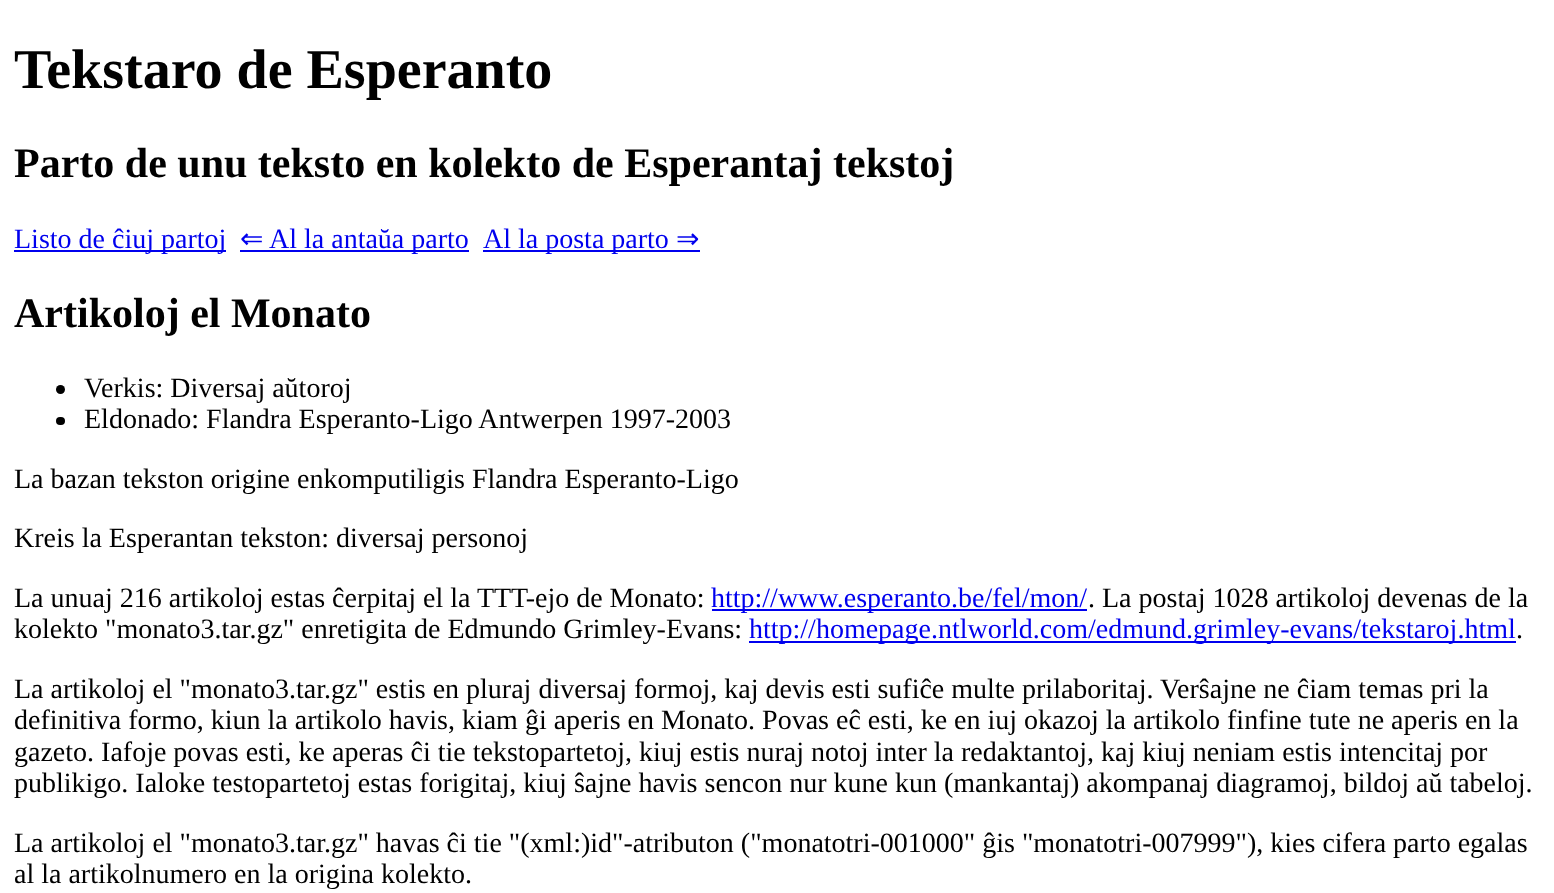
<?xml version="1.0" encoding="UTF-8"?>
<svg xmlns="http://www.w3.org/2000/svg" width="1554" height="893">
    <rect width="100%" height="100%" fill="#FFFFFF"/>
    <text x="14" y="88" font-family="Liberation Serif" font-size="56" font-weight="700" fill="#000000">Tekstaro de Esperanto</text>
    <text x="14" y="177" font-family="Liberation Serif" font-size="42" font-weight="700" fill="#000000">Parto de unu teksto en kolekto de Esperantaj tekstoj</text>
    <rect x="14" y="250" width="212" height="2" fill="#0000EE"/>
    <text x="14" y="248" font-family="Liberation Serif" font-size="28" fill="#0000EE">Listo de ĉiuj partoj</text>
    <text x="240" y="248" font-family="DejaVu Sans" font-size="28" fill="#0000EE">⇐</text>
    <rect x="240" y="250" width="229" height="2" fill="#0000EE"/>
    <text x="269" y="248" font-family="Liberation Serif" font-size="28" fill="#0000EE">Al la antaŭa parto</text>
    <rect x="483" y="250" width="217" height="2" fill="#0000EE"/>
    <text x="483" y="248" font-family="Liberation Serif" font-size="28" fill="#0000EE">Al la posta parto</text>
    <text x="676" y="248" font-family="DejaVu Sans" font-size="28" fill="#0000EE">⇒</text>
    <text x="14" y="327" font-family="Liberation Serif" font-size="42" font-weight="700" fill="#000000">Artikoloj el Monato</text>
    <circle cx="60.5" cy="389.5" r="4.5" fill="#000000"/>
    <text x="84" y="397" font-family="Liberation Serif" font-size="28" fill="#000000">Verkis: Diversaj aŭtoroj</text>
    <rect x="56" y="417" width="9" height="8" rx="4" fill="#000000"/>
    <text x="84" y="428" font-family="Liberation Serif" font-size="28" fill="#000000">Eldonado: Flandra Esperanto-Ligo Antwerpen 1997-2003</text>
    <text x="14" y="488" font-family="Liberation Serif" font-size="28" fill="#000000">La bazan tekston origine enkomputiligis Flandra Esperanto-Ligo</text>
    <text x="14" y="547" font-family="Liberation Serif" font-size="28" fill="#000000">Kreis la Esperantan tekston: diversaj personoj</text>
    <text x="14" y="607" font-family="Liberation Serif" font-size="28" fill="#000000">La unuaj 216 artikoloj estas ĉerpitaj el la TTT-ejo de Monato:</text>
    <rect x="712" y="609" width="375" height="2" fill="#0000EE"/>
    <text x="711" y="607" font-family="Liberation Serif" font-size="28" fill="#0000EE">http://www.esperanto.be/fel/mon/</text>
    <text x="1088" y="607" font-family="Liberation Serif" font-size="28" fill="#000000">. La postaj 1028 artikoloj devenas de la</text>
    <text x="14" y="638" font-family="Liberation Serif" font-size="28" fill="#000000">kolekto "monato3.tar.gz" enretigita de Edmundo Grimley-Evans:</text>
    <rect x="749" y="641" width="767" height="2" fill="#0000EE"/>
    <text x="749" y="638" font-family="Liberation Serif" font-size="28" fill="#0000EE">http://homepage.ntlworld.com/edmund.grimley-evans/tekstaroj.html</text>
    <text x="1516" y="638" font-family="Liberation Serif" font-size="28" fill="#000000">.</text>
    <text font-family="Liberation Serif" font-size="28" fill="#000000">
        <tspan x="14" y="698">La artikoloj el "monato3.tar.gz" estis en pluraj diversaj formoj, kaj devis esti sufiĉe multe prilaboritaj. Verŝajne ne ĉiam temas pri la</tspan>
        <tspan x="14" y="729">definitiva formo, kiun la artikolo havis, kiam ĝi aperis en Monato. Povas eĉ esti, ke en iuj okazoj la artikolo finfine tute ne aperis en la</tspan>
        <tspan x="14" y="761">gazeto. Iafoje povas esti, ke aperas ĉi tie tekstopartetoj, kiuj estis nuraj notoj inter la redaktantoj, kaj kiuj neniam estis intencitaj por</tspan>
        <tspan x="14" y="792">publikigo. Ialoke testopartetoj estas forigitaj, kiuj ŝajne havis sencon nur kune kun (mankantaj) akompanaj diagramoj, bildoj aŭ tabeloj.</tspan>
    </text>
    <text font-family="Liberation Serif" font-size="28" fill="#000000">
        <tspan x="14" y="852">La artikoloj el "monato3.tar.gz" havas ĉi tie "(xml:)id"-atributon ("monatotri-001000" ĝis "monatotri-007999"), kies cifera parto egalas</tspan>
        <tspan x="14" y="883">al la artikolnumero en la origina kolekto.</tspan>
    </text>
</svg>
